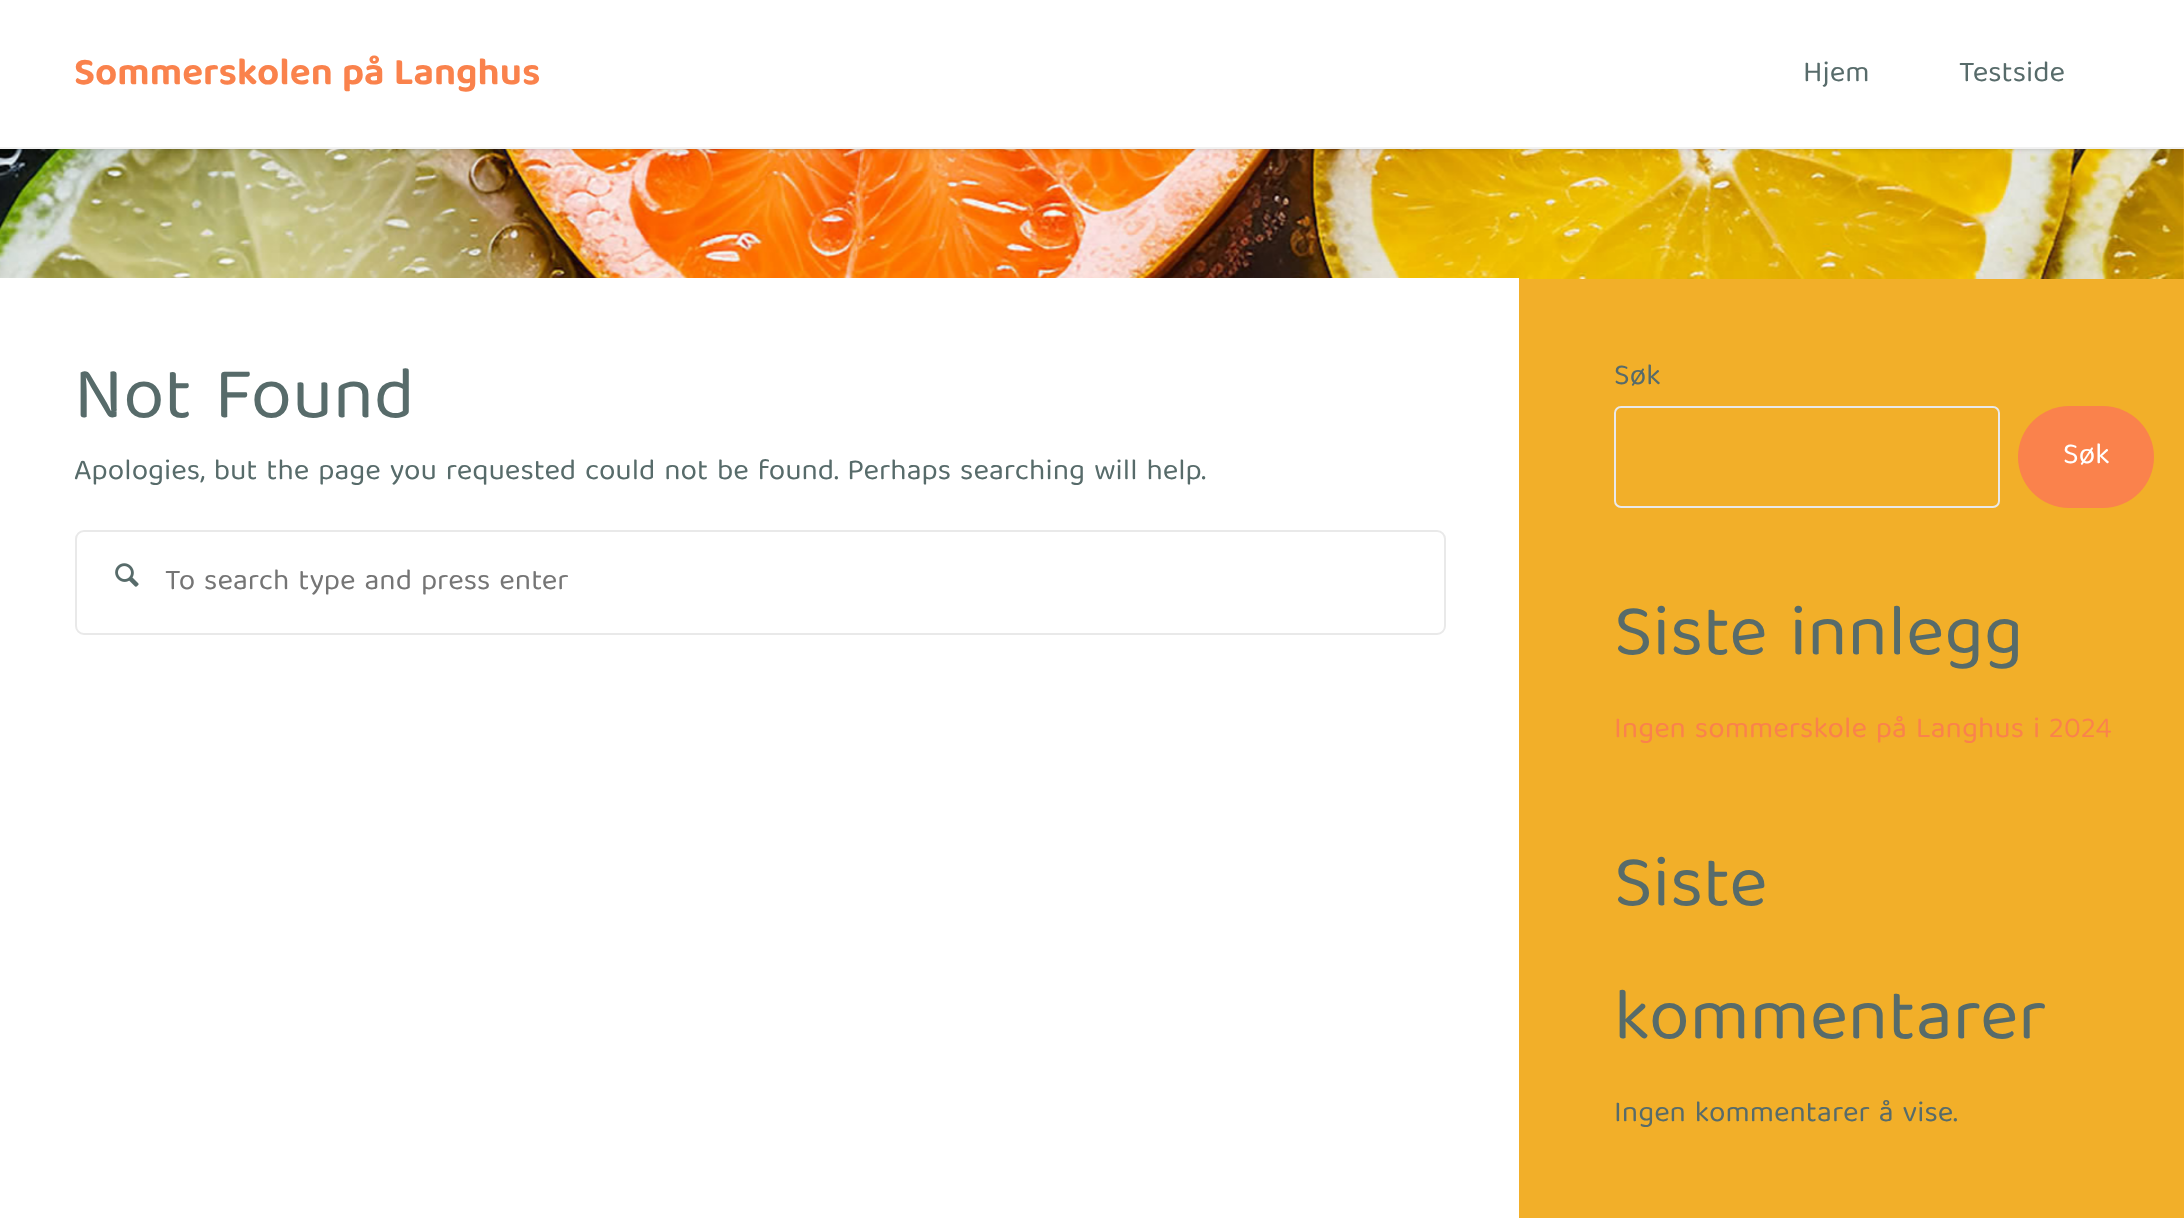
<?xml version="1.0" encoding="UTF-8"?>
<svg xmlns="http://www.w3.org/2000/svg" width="2184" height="1218">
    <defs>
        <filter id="blur1" x="-50%" y="-200%" width="200%" height="500%"><feGaussianBlur stdDeviation="2.5"/></filter>
    </defs>
    <rect width="100%" height="100%" fill="#F2AF29"/>
    <image x="0" y="149" width="2184" height="130" href="img_01.png"/>
    <rect x="0" y="0" width="2184" height="149" fill="#000000" fill-opacity="0.2" filter="url(#blur1)"/>
    <rect x="0" y="0" width="2184" height="147" fill="#FFFFFF"/>
    <rect x="0" y="147" width="2184" height="2" fill="#F2F2F2"/>
    <text x="74" y="84" font-family="'Baloo Tamma 2'" font-size="38.75" font-weight="700" fill="#FA824C">Sommerskolen på Langhus</text>
    <text x="1803" y="81" font-family="'Baloo Tamma 2'" font-size="29.75" fill="#576B6A">Hjem</text>
    <text x="1959" y="81" font-family="'Baloo Tamma 2'" font-size="29.75" fill="#576B6A">Testside</text>
    <rect x="0" y="278" width="1519" height="940" fill="#FFFFFF"/>
    <text x="74" y="417" font-family="'Baloo Tamma 2'" font-size="74.5" fill="#576B6A">Not Found</text>
    <text x="74" y="479" font-family="'Baloo Tamma 2'" font-size="29.75" fill="#576B6A">Apologies, but the page you requested could not be found. Perhaps searching will help.</text>
    <rect x="76" y="531" width="1369" height="103" rx="8" fill="none" stroke="#E9E9E9" stroke-width="2"/>
    <image x="115" y="563" width="24" height="24" href="img_02.png"/>
    <text x="165" y="589" font-family="'Baloo Tamma 2'" font-size="29.75" fill="#757575">To search type and press enter</text>
    <text x="1614" y="384" font-family="'Baloo Tamma 2'" font-size="29.75" fill="#576B6A">Søk</text>
    <rect x="1615" y="407" width="384" height="100" rx="6" fill="none" stroke="#E9E9E9" stroke-width="2"/>
    <rect x="2018" y="406" width="136" height="102" rx="51" fill="#FA824C"/>
    <text x="2063" y="463" font-family="'Baloo Tamma 2'" font-size="29.75" fill="#FFFFFF">Søk</text>
    <text x="1614" y="654" font-family="'Baloo Tamma 2'" font-size="73.5" fill="#576B6A">Siste innlegg</text>
    <text x="1614" y="737" font-family="'Baloo Tamma 2'" font-size="29.75" fill="#FA824C">Ingen sommerskole på Langhus i 2024</text>
    <text font-family="'Baloo Tamma 2'" font-size="73.5" fill="#576B6A">
        <tspan x="1614" y="905">Siste</tspan>
        <tspan x="1614" y="1038">kommentarer</tspan>
    </text>
    <text x="1614" y="1121" font-family="'Baloo Tamma 2'" font-size="29.75" fill="#576B6A">Ingen kommentarer å vise.</text>
</svg>
